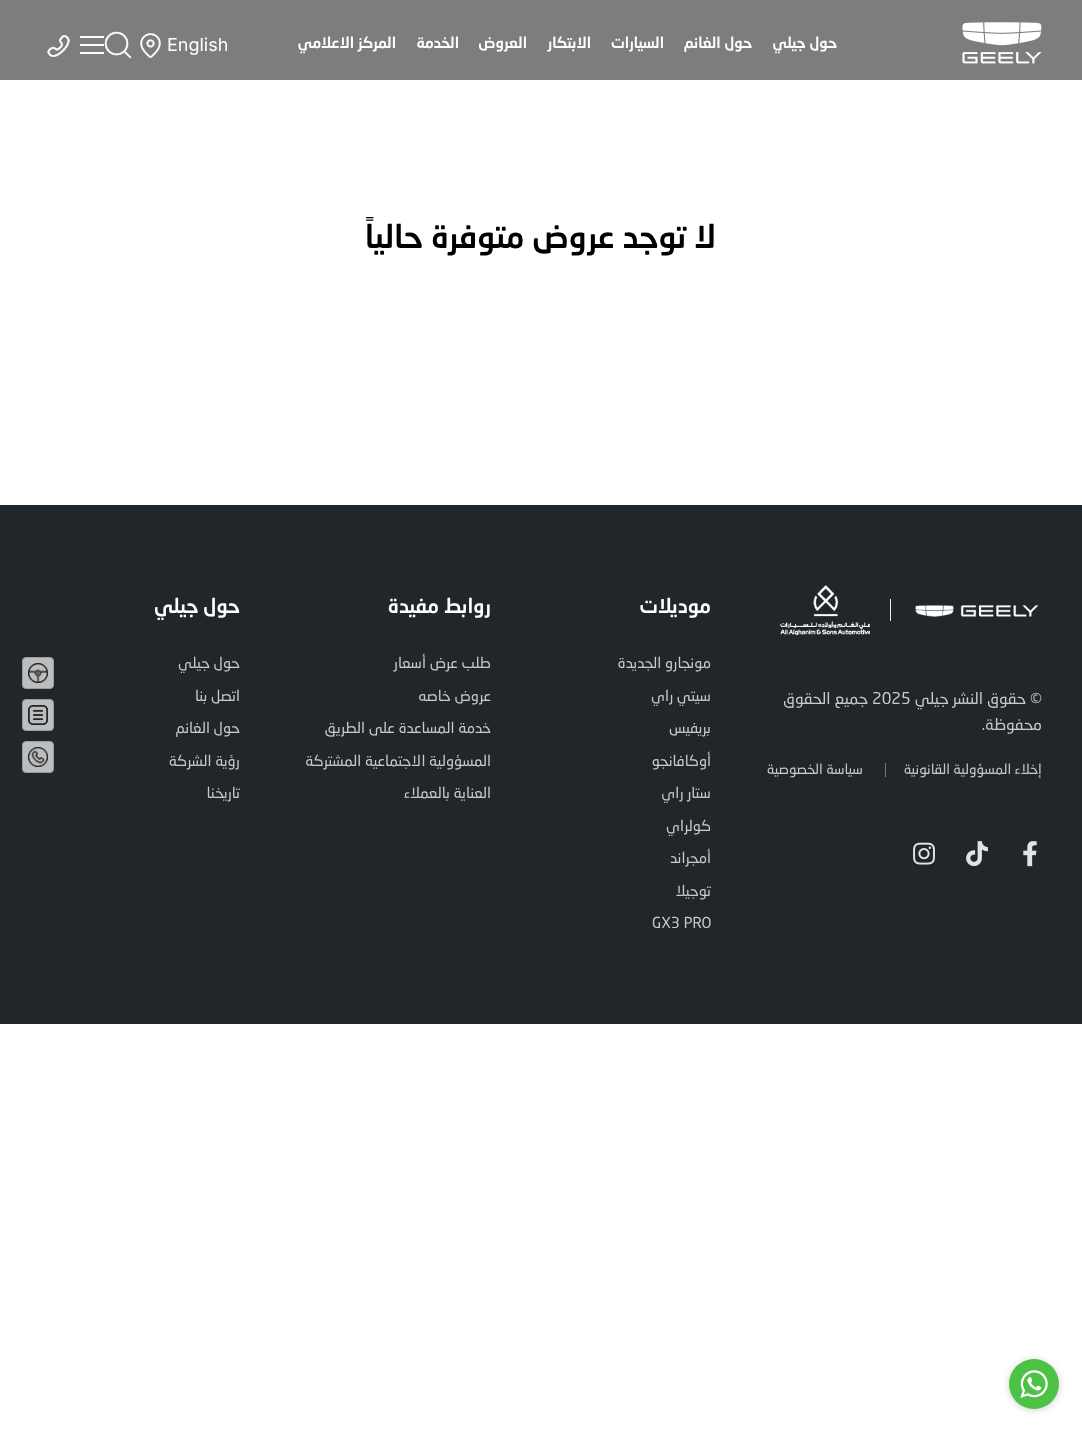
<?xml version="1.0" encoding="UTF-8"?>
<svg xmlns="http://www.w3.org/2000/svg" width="1082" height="1430">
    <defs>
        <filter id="blur1" x="-50%" y="-200%" width="200%" height="500%"><feGaussianBlur stdDeviation="3.5"/></filter>
    </defs>
    <rect width="100%" height="100%" fill="#FFFFFF"/>
    <rect x="0" y="0" width="1082" height="80" fill="#7D7D7D"/>
    <image x="962" y="22" width="80" height="42" href="img_01.png"/>
    <text x="837" y="48" font-family="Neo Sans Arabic" font-size="15" font-weight="500" direction="rtl" fill="#FFFFFF">حول جيلي</text>
    <text x="752" y="48" font-family="Neo Sans Arabic" font-size="15" font-weight="500" direction="rtl" fill="#FFFFFF">حول الغانم</text>
    <text x="664" y="48" font-family="Neo Sans Arabic" font-size="15" font-weight="500" direction="rtl" fill="#FFFFFF">السيارات</text>
    <text x="591" y="48" font-family="Neo Sans Arabic" font-size="15" font-weight="500" direction="rtl" fill="#FFFFFF">الابتكار</text>
    <text x="527" y="48" font-family="Neo Sans Arabic" font-size="15" font-weight="500" direction="rtl" fill="#FFFFFF">العروض</text>
    <text x="459" y="48" font-family="Neo Sans Arabic" font-size="15" font-weight="500" direction="rtl" fill="#FFFFFF">الخدمة</text>
    <text x="396" y="48" font-family="Neo Sans Arabic" font-size="15" font-weight="500" direction="rtl" fill="#FFFFFF">المركز الاعلامي</text>
    <text x="167" y="51" font-family="Inter" font-size="18" fill="#FFFFFF">English</text>
    <image x="140" y="33" width="21" height="25" href="img_02.png"/>
    <image x="104" y="31" width="28" height="28" href="img_03.png"/>
    <rect x="80" y="36" width="24" height="2" fill="#FFFFFF"/>
    <rect x="80" y="44" width="24" height="2" fill="#FFFFFF"/>
    <rect x="80" y="52" width="24" height="2" fill="#FFFFFF"/>
    <image x="47" y="35" width="23" height="22" href="img_04.png"/>
    <text x="716" y="248" font-family="Neo Sans Arabic" font-size="32" font-weight="500" direction="rtl" fill="#000000">لا توجد عروض متوفرة حالياً</text>
    <rect x="0" y="505" width="1082" height="519" fill="#21262A"/>
    <image x="915" y="605" width="124" height="12" href="img_05.png"/>
    <rect x="890" y="599" width="1" height="22" fill="#EBEBEB"/>
    <image x="780" y="585" width="90" height="50" href="img_06.png"/>
    <text x="1042" y="704" font-family="Neo Sans Arabic" font-size="16" direction="rtl" fill="#CACACA">© حقوق النشر جيلي</text>
    <text x="872" y="704" font-family="Neo Sans Arabic" font-size="16" fill="#CACACA">2025</text>
    <text x="868" y="704" font-family="Neo Sans Arabic" font-size="16" direction="rtl" fill="#CACACA">جميع الحقوق</text>
    <text x="1042" y="730" font-family="Neo Sans Arabic" font-size="16" direction="rtl" fill="#CACACA">محفوظة.</text>
    <text x="1042" y="774" font-family="Neo Sans Arabic" font-size="14" direction="rtl" fill="#CACACA">إخلاء المسؤولية القانونية</text>
    <rect x="885" y="763" width="1" height="14" fill="#777777"/>
    <text x="863" y="774" font-family="Neo Sans Arabic" font-size="14" direction="rtl" fill="#CACACA">سياسة الخصوصية</text>
    <image x="1023" y="841" width="14" height="26" href="img_07.png"/>
    <image x="966" y="841" width="22" height="26" href="img_08.png"/>
    <image x="913" y="842" width="22" height="23" href="img_09.png"/>
    <text x="711" y="613" font-family="Neo Sans Arabic" font-size="20" font-weight="500" direction="rtl" fill="#FFFFFF">موديلات</text>
    <text x="711" y="668" font-family="Neo Sans Arabic" font-size="15" direction="rtl" fill="#CACACA">مونجارو الجديدة</text>
    <text x="711" y="701" font-family="Neo Sans Arabic" font-size="15" direction="rtl" fill="#CACACA">سيتي راي</text>
    <text x="711" y="733" font-family="Neo Sans Arabic" font-size="15" direction="rtl" fill="#CACACA">بريفيس</text>
    <text x="711" y="766" font-family="Neo Sans Arabic" font-size="15" direction="rtl" fill="#CACACA">أوكافانجو</text>
    <text x="711" y="798" font-family="Neo Sans Arabic" font-size="15" direction="rtl" fill="#CACACA">ستار راي</text>
    <text x="711" y="831" font-family="Neo Sans Arabic" font-size="15" direction="rtl" fill="#CACACA">كولراي</text>
    <text x="711" y="863" font-family="Neo Sans Arabic" font-size="15" direction="rtl" fill="#CACACA">أمجراند</text>
    <text x="711" y="896" font-family="Neo Sans Arabic" font-size="15" direction="rtl" fill="#CACACA">توجيلا</text>
    <text x="652" y="928" font-family="Neo Sans Arabic" font-size="15" fill="#CACACA">GX3 PRO</text>
    <text x="491" y="613" font-family="Neo Sans Arabic" font-size="20" font-weight="500" direction="rtl" fill="#FFFFFF">روابط مفيدة</text>
    <text x="491" y="668" font-family="Neo Sans Arabic" font-size="15" direction="rtl" fill="#CACACA">طلب عرض أسعار</text>
    <text x="491" y="701" font-family="Neo Sans Arabic" font-size="15" direction="rtl" fill="#CACACA">عروض خاصه</text>
    <text x="491" y="733" font-family="Neo Sans Arabic" font-size="15" direction="rtl" fill="#CACACA">خدمة المساعدة على الطريق</text>
    <text x="491" y="766" font-family="Neo Sans Arabic" font-size="15" direction="rtl" fill="#CACACA">المسؤولية الاجتماعية المشتركة</text>
    <text x="491" y="798" font-family="Neo Sans Arabic" font-size="15" direction="rtl" fill="#CACACA">العناية بالعملاء</text>
    <text x="240" y="613" font-family="Neo Sans Arabic" font-size="20" font-weight="500" direction="rtl" fill="#FFFFFF">حول جيلي</text>
    <text x="240" y="668" font-family="Neo Sans Arabic" font-size="15" direction="rtl" fill="#CACACA">حول جيلي</text>
    <text x="240" y="701" font-family="Neo Sans Arabic" font-size="15" direction="rtl" fill="#CACACA">اتصل بنا</text>
    <text x="240" y="733" font-family="Neo Sans Arabic" font-size="15" direction="rtl" fill="#CACACA">حول الغانم</text>
    <text x="240" y="766" font-family="Neo Sans Arabic" font-size="15" direction="rtl" fill="#CACACA">رؤية الشركة</text>
    <text x="240" y="798" font-family="Neo Sans Arabic" font-size="15" direction="rtl" fill="#CACACA">تاريخنا</text>
    <rect x="22.5" y="657.5" width="31" height="31" rx="3.5" fill="#BCBDBF" stroke="#9D9D9D"/>
    <image x="28" y="663" width="20" height="20" href="img_10.png"/>
    <rect x="22.5" y="699.5" width="31" height="31" rx="3.5" fill="#BCBDBF" stroke="#9D9D9D"/>
    <image x="28" y="705" width="20" height="20" href="img_11.png"/>
    <rect x="22.5" y="741.5" width="31" height="31" rx="3.5" fill="#BCBDBF" stroke="#9D9D9D"/>
    <image x="28" y="747" width="20" height="20" href="img_12.png"/>
    <rect x="1009" y="1360" width="50" height="50" rx="25" fill="#888888" fill-opacity="0.4" filter="url(#blur1)"/>
    <circle cx="1034" cy="1384" r="25" fill="#4DC247"/>
    <image x="1020" y="1370" width="28" height="28" href="img_13.png"/>
</svg>
